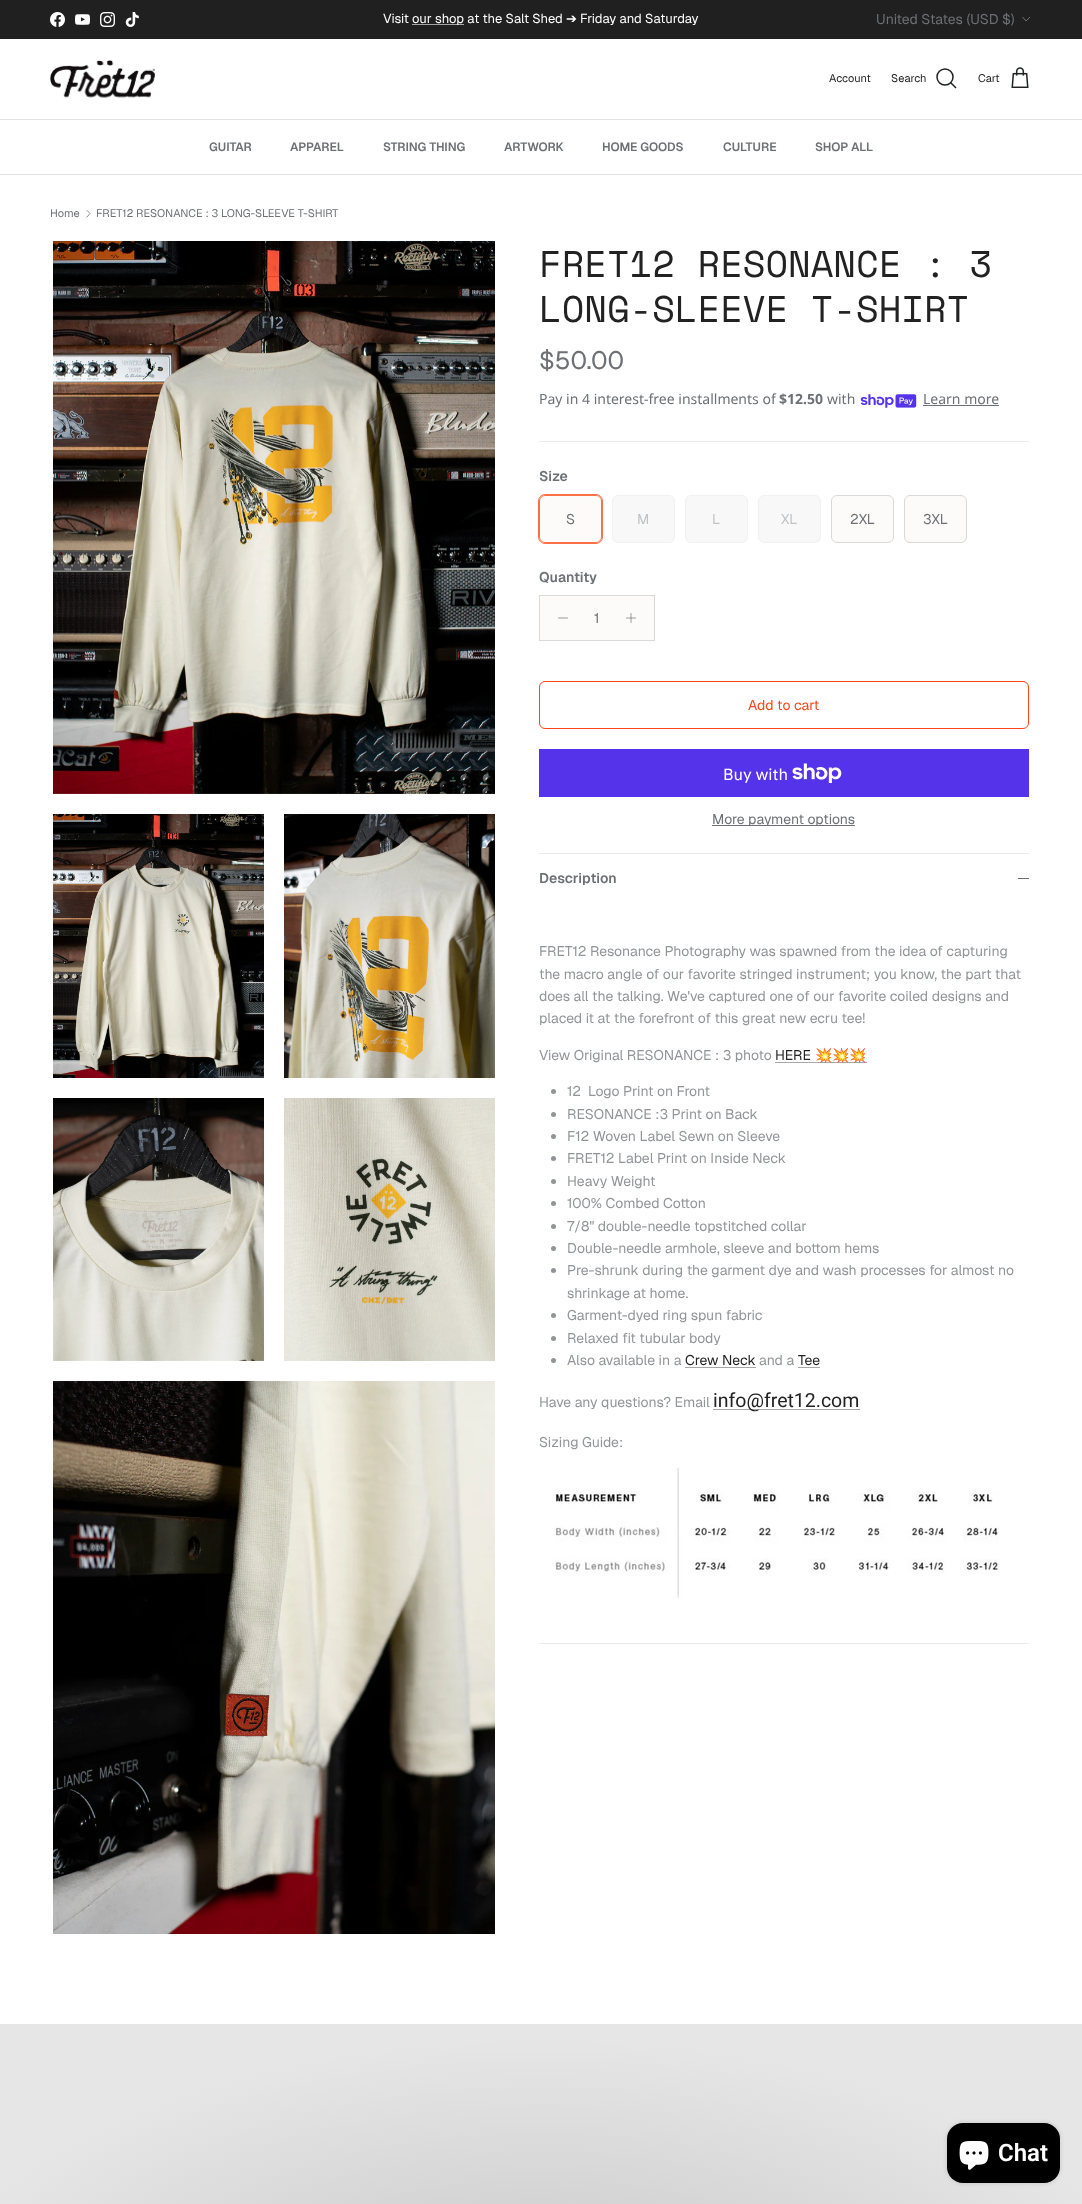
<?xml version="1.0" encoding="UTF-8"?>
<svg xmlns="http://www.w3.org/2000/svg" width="1082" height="2204">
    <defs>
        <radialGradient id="g1" gradientUnits="userSpaceOnUse" cx="0" cy="0" r="1" gradientTransform="matrix(907 0 0 450 541 2354)"><stop offset="0" stop-color="#C4C4C4"/><stop offset="0.7" stop-color="#E6E6E6"/></radialGradient>
        <filter id="blur1" x="-50%" y="-200%" width="200%" height="500%"><feGaussianBlur stdDeviation="2.5"/></filter>
    </defs>
    <rect width="100%" height="100%" fill="#FFFFFF"/>
    <rect x="0" y="0" width="1082" height="39" fill="#202020"/>
    <image x="50" y="12" width="15" height="15" href="img_01.png"/>
    <image x="75" y="14" width="15" height="11" href="img_02.png"/>
    <image x="100" y="12" width="15" height="15" href="img_03.png"/>
    <image x="125" y="12" width="14" height="15" href="img_04.png"/>
    <text x="383" y="23" font-family="Geist" font-size="13" fill="#FFFFFF">Visit</text>
    <rect x="412" y="24" width="52" height="1" fill="#A6A6A6"/>
    <text x="412" y="23" font-family="Geist" font-size="13" fill="#FFFFFF">our shop at the Salt Shed</text>
    <text x="566" y="23" font-family="DejaVu Sans" font-size="13" fill="#FFFFFF">➔</text>
    <text x="580" y="23" font-family="Geist" font-size="13" fill="#FFFFFF">Friday and Saturday</text>
    <text x="876" y="24" font-family="Geist" font-size="14" fill="#6D7175">United States (USD $)</text>
    <path d="M 1030 17 L 1026 21 L 1022.5 17" fill="none" stroke="#6D7175"/>
    <rect x="0" y="119" width="1082" height="1" fill="#E2E2E2"/>
    <image x="50" y="60" width="105" height="38" href="img_05.png"/>
    <text x="829" y="82" font-family="Geist" font-size="11" fill="#222222">Account</text>
    <text x="891" y="82" font-family="Geist" font-size="11" fill="#222222">Search</text>
    <circle cx="945" cy="77" r="8" fill="none" stroke="#202223" stroke-width="1.5"/>
    <path d="M 951 83 L 955.5 87.5" fill="none" stroke="#202223" stroke-width="1.5" stroke-linecap="square"/>
    <text x="978" y="82" font-family="Geist" font-size="11" fill="#222222">Cart</text>
    <image x="1011" y="67" width="18" height="21" href="img_06.png"/>
    <rect x="0" y="174" width="1082" height="1" fill="#E2E2E2"/>
    <text x="209" y="151" font-family="Geist" font-size="12" font-weight="600" fill="#6D7175">GUITAR</text>
    <text x="290" y="151" font-family="Geist" font-size="12" font-weight="600" fill="#6D7175">APPAREL</text>
    <text x="383" y="151" font-family="Geist" font-size="12" font-weight="600" fill="#6D7175">STRING THING</text>
    <text x="504" y="151" font-family="Geist" font-size="12" font-weight="600" fill="#6D7175">ARTWORK</text>
    <text x="602" y="151" font-family="Geist" font-size="12" font-weight="600" fill="#6D7175">HOME GOODS</text>
    <text x="723" y="151" font-family="Geist" font-size="12" font-weight="600" fill="#6D7175">CULTURE</text>
    <text x="815" y="151" font-family="Geist" font-size="12" font-weight="600" fill="#6D7175">SHOP ALL</text>
    <text x="50" y="217" font-family="Geist" font-size="11" fill="#6D7175">Home</text>
    <path d="M 87 217 L 90 213.5 L 87 210.5" fill="none" stroke="#6D7175" stroke-width="0.8" stroke-linecap="round" stroke-linejoin="round"/>
    <text x="96" y="217" font-family="Geist" font-size="11" fill="#6D7175">FRET12 RESONANCE : 3 LONG-SLEEVE T-SHIRT</text>
    <image x="53" y="241" width="442" height="553" href="img_07.png"/>
    <image x="53" y="814" width="211" height="264" href="img_08.png"/>
    <image x="284" y="814" width="211" height="264" href="img_09.png"/>
    <image x="53" y="1098" width="211" height="263" href="img_10.png"/>
    <image x="284" y="1098" width="211" height="263" href="img_11.png"/>
    <image x="53" y="1381" width="442" height="553" href="img_12.png"/>
    <text font-family="Space Mono" font-size="37" fill="#222222">
        <tspan x="539" y="277">FRET12 RESONANCE : 3</tspan>
        <tspan x="539" y="322">LONG-SLEEVE T-SHIRT</tspan>
    </text>
    <text x="539" y="369" font-family="Geist" font-size="25" fill="#6D7175">$50.00</text>
    <text x="539" y="404" font-family="Noto Sans" font-size="14" fill="#6D7175">Pay in 4 interest-free installments of</text>
    <text x="779" y="404" font-family="Noto Sans" font-size="14" font-weight="700" fill="#6D7175">$12.50</text>
    <text x="827" y="404" font-family="Noto Sans" font-size="14" fill="#6D7175">with</text>
    <image x="860" y="394" width="57" height="14" href="img_13.png"/>
    <text x="923" y="404" font-family="Noto Sans" font-size="14" fill="#6D7175">Learn more</text>
    <rect x="923" y="405" width="76" height="1" fill="#6D7175"/>
    <rect x="539" y="441" width="490" height="1" fill="#EBEBEC"/>
    <text x="539" y="481" font-family="Geist" font-size="14" font-weight="600" fill="#6D7175">Size</text>
    <rect x="538.5" y="494.5" width="64" height="49" rx="6.5" fill="none" stroke="#FB6F49"/>
    <rect x="539.5" y="495.5" width="62" height="47" rx="5.5" fill="#FDFBF9" stroke="#FB6F49"/>
    <text x="566" y="524" font-family="Geist" font-size="14" fill="#6D7175">S</text>
    <rect x="612.5" y="495.5" width="62" height="47" rx="5.5" fill="#F8F8F8" stroke="#F1F1F2"/>
    <text x="637" y="524" font-family="Geist" font-size="14" fill="#C0C2C4">M</text>
    <rect x="685.5" y="495.5" width="62" height="47" rx="5.5" fill="#F8F8F8" stroke="#F1F1F2"/>
    <text x="712" y="524" font-family="Geist" font-size="14" fill="#C0C2C4">L</text>
    <rect x="758.5" y="495.5" width="62" height="47" rx="5.5" fill="#F8F8F8" stroke="#F1F1F2"/>
    <text x="781" y="524" font-family="Geist" font-size="14" fill="#C0C2C4">XL</text>
    <rect x="831.5" y="495.5" width="62" height="47" rx="5.5" fill="#FDFBF9" stroke="#D9D9D8"/>
    <text x="850" y="524" font-family="Geist" font-size="14" fill="#6D7175">2XL</text>
    <rect x="904.5" y="495.5" width="62" height="47" rx="5.5" fill="#FDFBF9" stroke="#D9D9D8"/>
    <text x="923" y="524" font-family="Geist" font-size="14" fill="#6D7175">3XL</text>
    <text x="539" y="582" font-family="Geist" font-size="14" font-weight="600" fill="#6D7175">Quantity</text>
    <rect x="539.5" y="595.5" width="115" height="45" fill="#FDFBF9" stroke="#D9D9D8"/>
    <path d="M 558.5 618 H 567.5" fill="none" stroke="#6D7175" stroke-width="0.7" stroke-linecap="round" stroke-linejoin="round"/>
    <text x="594" y="623" font-family="Geist" font-size="14" fill="#6D7175">1</text>
    <path d="M 631 613.5 V 622.5 M 626.5 618 H 635.5" fill="none" stroke="#6D7175" stroke-width="0.7" stroke-linecap="round" stroke-linejoin="round"/>
    <rect x="539.5" y="681.5" width="489" height="47" rx="5.5" fill="none" stroke="#FA4616"/>
    <text x="748" y="710" font-family="Geist" font-size="14" fill="#FA4616">Add to cart</text>
    <rect x="539" y="749" width="490" height="48" fill="#5433EB"/>
    <text x="723" y="780" font-family="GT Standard" font-size="16" fill="#FFFFFF">Buy with</text>
    <image x="792" y="763" width="50" height="20" href="img_14.png"/>
    <rect x="712" y="825" width="143" height="1" fill="#6D7175"/>
    <text x="712" y="824" font-family="Geist" font-size="14" fill="#6D7175">More payment options</text>
    <rect x="539" y="853" width="490" height="1" fill="#E9EAEA"/>
    <rect x="539" y="1643" width="490" height="1" fill="#E9EAEA"/>
    <text x="539" y="883" font-family="Geist" font-size="14" font-weight="600" fill="#6D7175">Description</text>
    <rect x="1018" y="878" width="11" height="1" fill="#6D7175"/>
    <text font-family="Geist" font-size="14" fill="#929598">
        <tspan x="539" y="956">FRET12 Resonance Photography was spawned from the idea of capturing</tspan>
        <tspan x="539" y="979">the macro angle of our favorite stringed instrument; you know, the part that</tspan>
        <tspan x="539" y="1001">does all the talking. We've captured one of our favorite coiled designs and</tspan>
        <tspan x="539" y="1023">placed it at the forefront of this great new ecru tee!</tspan>
    </text>
    <text x="539" y="1060" font-family="Geist" font-size="14" fill="#929598">View Original RESONANCE : 3 photo</text>
    <text x="775" y="1060" font-family="Geist" font-size="14" fill="#222222">HERE</text>
    <rect x="775" y="1062" width="92" height="1" fill="#A6A7A7"/>
    <text x="815" y="1060" font-family="Noto Color Emoji" font-size="14" fill="#222222">💥💥💥</text>
    <circle cx="553.5" cy="1091.5" r="2.5" fill="#929598"/>
    <text x="567" y="1096" font-family="Geist" font-size="14" fill="#929598" xml:space="preserve">12  Logo Print on Front</text>
    <circle cx="553.5" cy="1114.5" r="2.5" fill="#929598"/>
    <text x="567" y="1119" font-family="Geist" font-size="14" fill="#929598">RESONANCE :3 Print on Back</text>
    <circle cx="553.5" cy="1136.5" r="2.5" fill="#929598"/>
    <text x="567" y="1141" font-family="Geist" font-size="14" fill="#929598">F12 Woven Label Sewn on Sleeve</text>
    <circle cx="553.5" cy="1158.5" r="2.5" fill="#929598"/>
    <text x="567" y="1163" font-family="Geist" font-size="14" fill="#929598">FRET12 Label Print on Inside Neck</text>
    <circle cx="553.5" cy="1181.5" r="2.5" fill="#929598"/>
    <text x="567" y="1186" font-family="Geist" font-size="14" fill="#929598">Heavy Weight</text>
    <circle cx="553.5" cy="1203.5" r="2.5" fill="#929598"/>
    <text x="567" y="1208" font-family="Geist" font-size="14" fill="#929598">100% Combed Cotton</text>
    <circle cx="553.5" cy="1226.5" r="2.5" fill="#929598"/>
    <text x="567" y="1231" font-family="Geist" font-size="14" fill="#929598">7/8" double-needle topstitched collar</text>
    <circle cx="553.5" cy="1248.5" r="2.5" fill="#929598"/>
    <text x="567" y="1253" font-family="Geist" font-size="14" fill="#929598">Double-needle armhole, sleeve and bottom hems</text>
    <circle cx="553.5" cy="1270.5" r="2.5" fill="#929598"/>
    <text font-family="Geist" font-size="14" fill="#929598">
        <tspan x="567" y="1275">Pre-shrunk during the garment dye and wash processes for almost no</tspan>
        <tspan x="567" y="1298">shrinkage at home.</tspan>
    </text>
    <circle cx="553.5" cy="1315.5" r="2.5" fill="#929598"/>
    <text x="567" y="1320" font-family="Geist" font-size="14" fill="#929598">Garment-dyed ring spun fabric</text>
    <circle cx="553.5" cy="1338.5" r="2.5" fill="#929598"/>
    <text x="567" y="1343" font-family="Geist" font-size="14" fill="#929598">Relaxed fit tubular body</text>
    <circle cx="553.5" cy="1360.5" r="2.5" fill="#929598"/>
    <text x="567" y="1365" font-family="Geist" font-size="14" fill="#929598">Also available in a</text>
    <text x="685" y="1365" font-family="Geist" font-size="14" fill="#222222">Crew Neck</text>
    <rect x="685" y="1367" width="71" height="1" fill="#A6A7A7"/>
    <text x="759" y="1365" font-family="Geist" font-size="14" fill="#929598">and a</text>
    <text x="798" y="1365" font-family="Geist" font-size="14" fill="#222222">Tee</text>
    <rect x="798" y="1367" width="22" height="1" fill="#A6A7A7"/>
    <text x="539" y="1407" font-family="Geist" font-size="14" fill="#929598">Have any questions? Email</text>
    <rect x="713" y="1409" width="147" height="1" fill="#A6A7A7"/>
    <text x="713" y="1407" font-family="Roboto" font-size="19.5" fill="#222222">info@fret12.com</text>
    <text x="539" y="1447" font-family="Geist" font-size="14" fill="#929598">Sizing Guide:</text>
    <image x="555" y="1467" width="444" height="132" href="img_15.png"/>
    <rect x="0" y="2024" width="1082" height="12" fill="#E6E6E6"/>
    <rect x="0" y="2036" width="1082" height="168" fill="url(#g1)"/>
    <rect x="947" y="2123" width="113" height="60" rx="16" fill="#000000" fill-opacity="0.15" filter="url(#blur1)"/>
    <rect x="947" y="2123" width="113" height="60" rx="16" fill="#000000"/>
    <image x="959" y="2141" width="30" height="29" href="img_16.png"/>
    <text x="998" y="2161" font-family="Roboto" font-size="24" font-weight="600" fill="#FFFFFF">Chat</text>
</svg>
